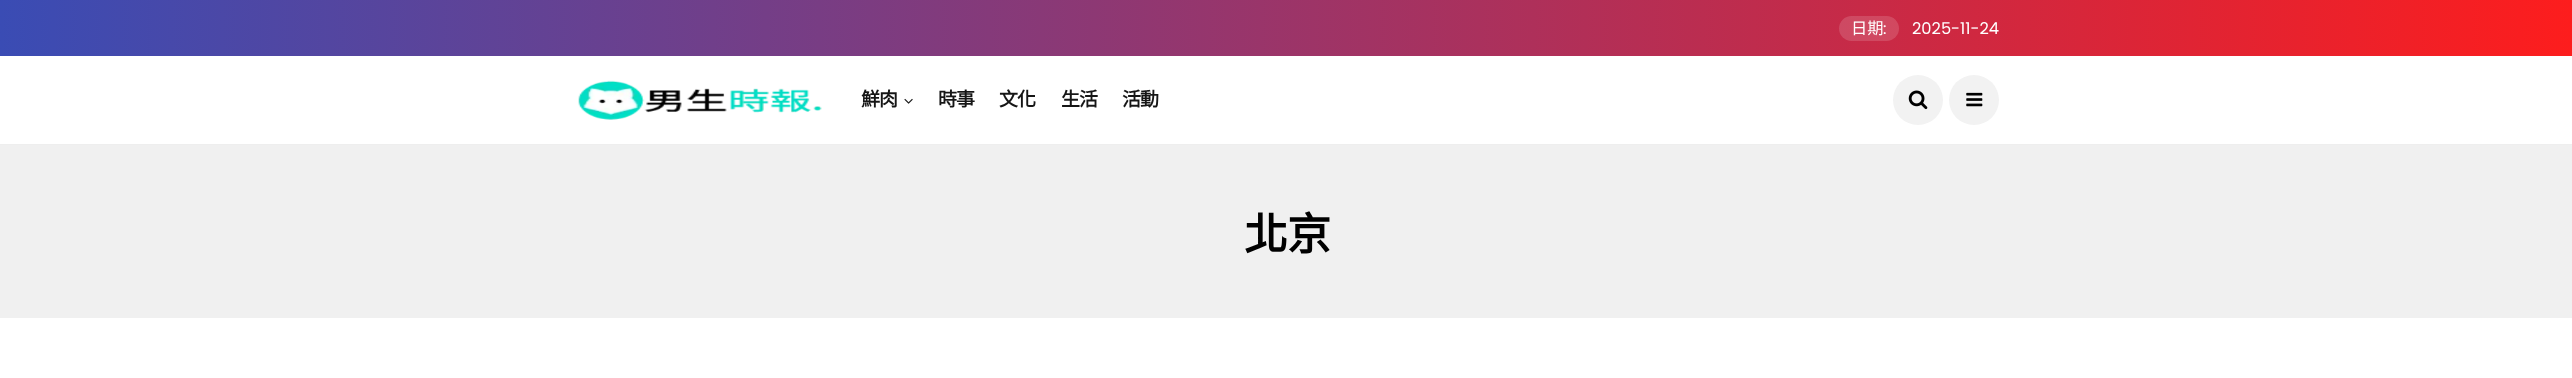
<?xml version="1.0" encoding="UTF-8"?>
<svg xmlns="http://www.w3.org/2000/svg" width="2572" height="378">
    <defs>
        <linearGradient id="g1" gradientUnits="userSpaceOnUse" x1="0" y1="28" x2="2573" y2="28"><stop offset="0" stop-color="#3A4CB4"/><stop offset="1" stop-color="#FD1D1D"/></linearGradient>
    </defs>
    <rect width="100%" height="100%" fill="#FFFFFF"/>
    <rect x="0" y="0" width="2572" height="56" fill="url(#g1)"/>
    <rect x="1839" y="16" width="60" height="25" rx="12.5" fill="#FFFFFF" fill-opacity="0.15"/>
    <text x="1851" y="34" font-family="Noto Sans CJK TC" font-size="16.25" fill="#FFFFFF">日期</text>
    <text x="1883" y="34" font-family="Poppins" font-size="16.25" fill="#FFFFFF">:</text>
    <text x="1912" y="34" font-family="Poppins" font-size="16.25" fill="#FFFFFF">2025-11-24</text>
    <rect x="0" y="144" width="2572" height="1" fill="#EEEEEE"/>
    <image x="578" y="80" width="244" height="40" href="img_01.png"/>
    <text x="861" y="106" font-family="Noto Sans CJK TC" font-size="19" font-weight="700" letter-spacing="-1" fill="#161616">鮮肉</text>
    <image x="904" y="98" width="9" height="6" href="img_02.png"/>
    <text x="938" y="106" font-family="Noto Sans CJK TC" font-size="19" font-weight="700" letter-spacing="-1" fill="#161616">時事</text>
    <text x="999" y="106" font-family="Noto Sans CJK TC" font-size="19" font-weight="700" letter-spacing="-1" fill="#161616">文化</text>
    <text x="1061" y="106" font-family="Noto Sans CJK TC" font-size="19" font-weight="700" letter-spacing="-1" fill="#161616">生活</text>
    <text x="1122" y="106" font-family="Noto Sans CJK TC" font-size="19" font-weight="700" letter-spacing="-1" fill="#161616">活動</text>
    <circle cx="1918" cy="100" r="25" fill="#F2F2F2"/>
    <image x="1908" y="90" width="20" height="20" href="img_03.png"/>
    <circle cx="1974" cy="100" r="25" fill="#F2F2F2"/>
    <image x="1966" y="92" width="17" height="15" href="img_04.png"/>
    <rect x="0" y="145" width="2572" height="173" fill="#F0F0F0"/>
    <text x="1244" y="250" font-family="Noto Sans CJK TC" font-size="44" font-weight="700" letter-spacing="-1" fill="#000000">北京</text>
</svg>
